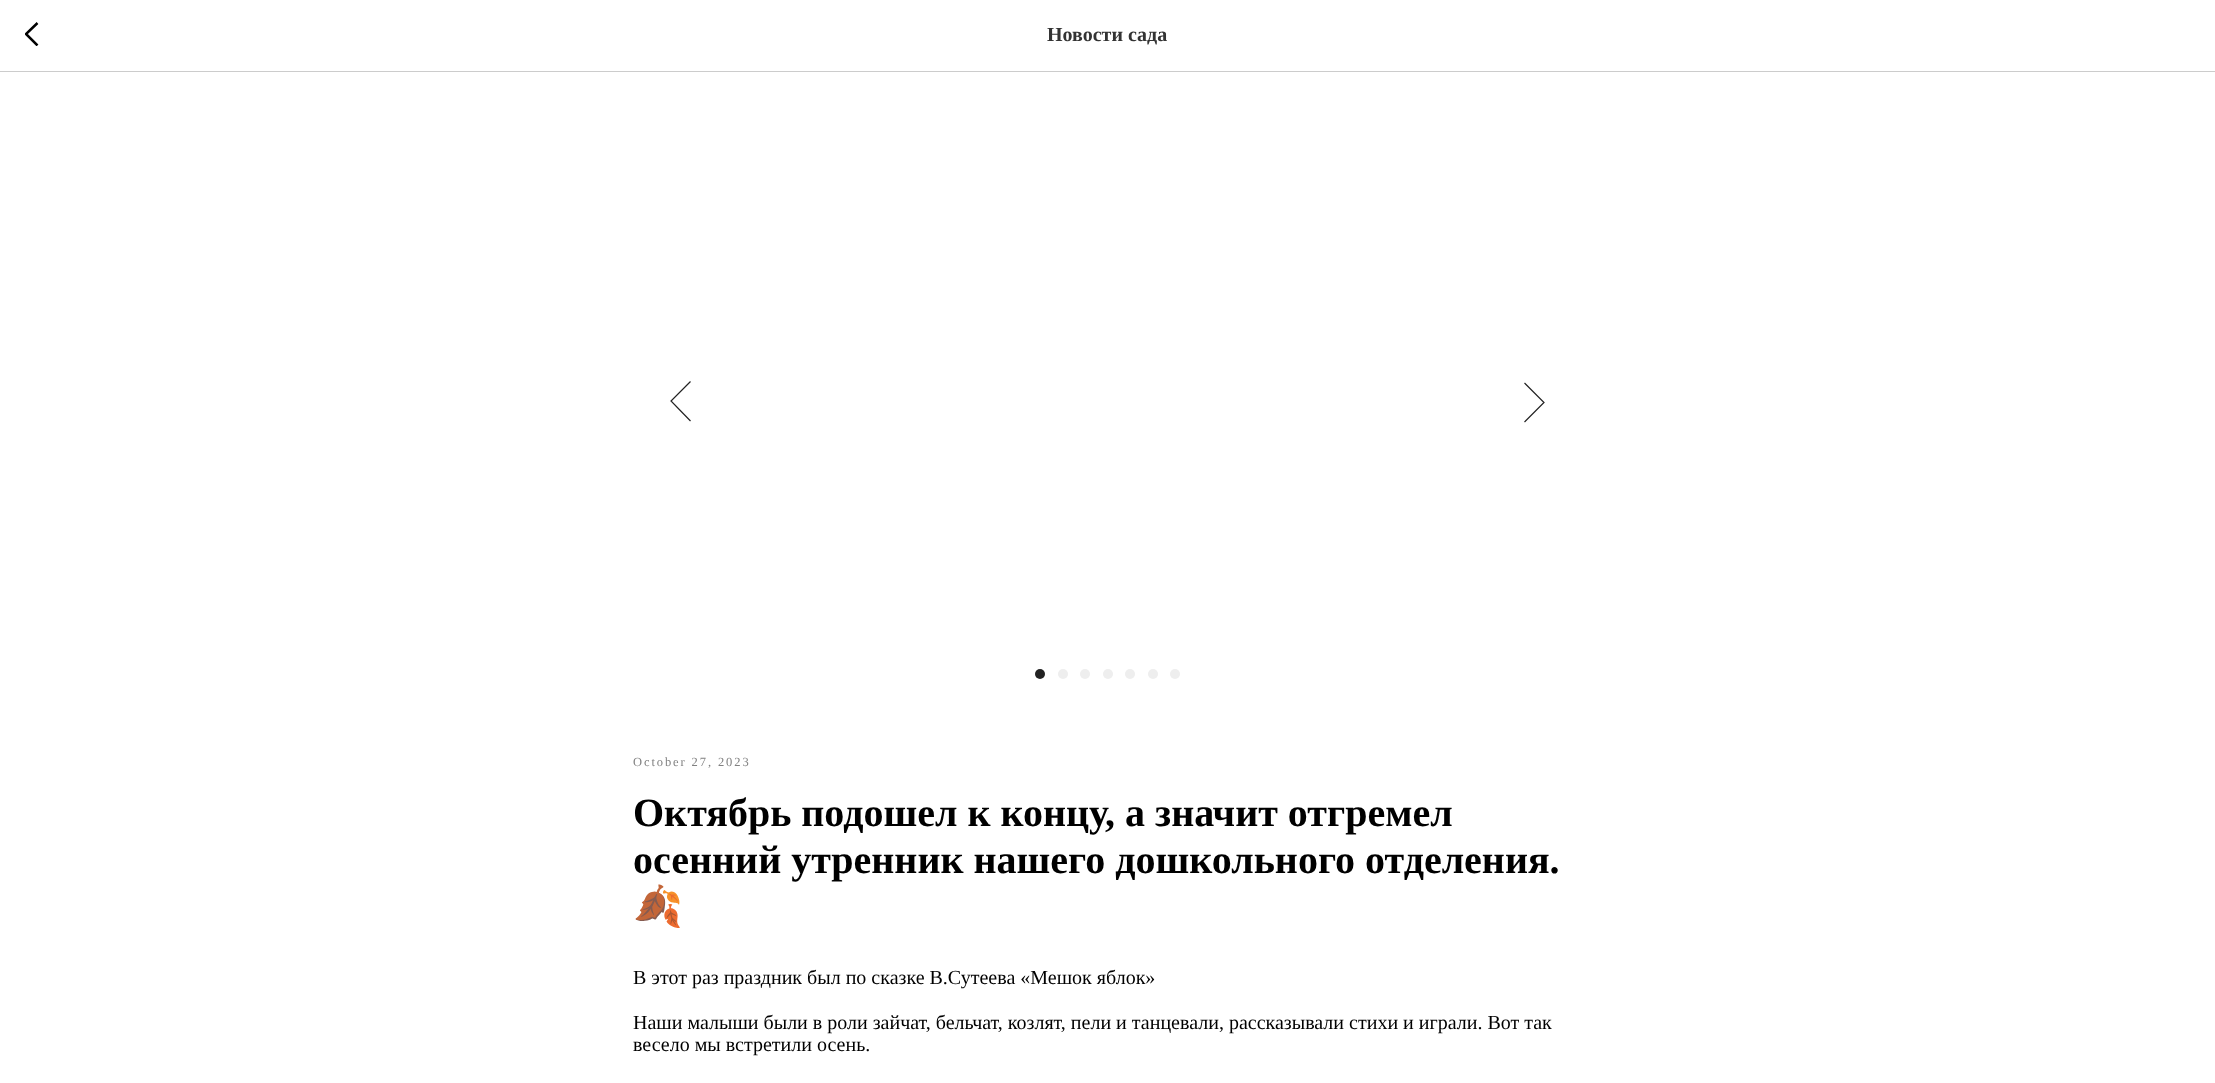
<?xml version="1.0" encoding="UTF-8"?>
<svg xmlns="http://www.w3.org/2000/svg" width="2215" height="1083">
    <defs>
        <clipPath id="clip1"><rect x="25" y="21" width="14" height="25"/></clipPath>
    </defs>
    <rect width="100%" height="100%" fill="#FFFFFF"/>
    <rect x="0" y="71" width="2215" height="1" fill="#CCCCCC"/>
    <g clip-path="url(#clip1)">
        <path d="M 37.5 45.5 L 26 34 L 37.5 23" fill="none" stroke="#000000" stroke-width="2.5"/>
    </g>
    <text x="1047" y="41" font-family="Liberation Serif" font-size="20" font-weight="700" fill="#333333">Новости сада</text>
    <path d="M 690.5 421 L 671 401 L 690.5 381.5" fill="none" stroke="#222222" stroke-width="1.2"/>
    <path d="M 1524.5 383 L 1544 402.5 L 1524.5 422" fill="none" stroke="#222222" stroke-width="1.2"/>
    <circle cx="1040" cy="674" r="5" fill="#222222"/>
    <circle cx="1063" cy="674" r="5" fill="#EEEEEE"/>
    <circle cx="1085" cy="674" r="5" fill="#EEEEEE"/>
    <circle cx="1108" cy="674" r="5" fill="#EEEEEE"/>
    <circle cx="1130" cy="674" r="5" fill="#EEEEEE"/>
    <circle cx="1153" cy="674" r="5" fill="#EEEEEE"/>
    <circle cx="1175" cy="674" r="5" fill="#EEEEEE"/>
    <text x="633" y="766" font-family="Liberation Serif" font-size="12.5" letter-spacing="1.9" fill="#808080">October 27, 2023</text>
    <text font-family="Liberation Serif" font-size="40" font-weight="700" fill="#000000">
        <tspan x="633" y="826">Октябрь подошел к концу, а значит отгремел</tspan>
        <tspan x="633" y="873">осенний утренник нашего дошкольного отделения.</tspan>
    </text>
    <text x="633" y="920" font-family="Noto Color Emoji" font-size="40" font-weight="700" fill="#000000">🍂</text>
    <text x="633" y="984" font-family="Liberation Serif" font-size="20" fill="#000000">В этот раз праздник был по сказке В.Сутеева «Мешок яблок»</text>
    <text font-family="Liberation Serif" font-size="20" fill="#000000">
        <tspan x="633" y="1029">Наши малыши были в роли зайчат, бельчат, козлят, пели и танцевали, рассказывали стихи и играли. Вот так</tspan>
        <tspan x="633" y="1051">весело мы встретили осень.</tspan>
    </text>
</svg>
